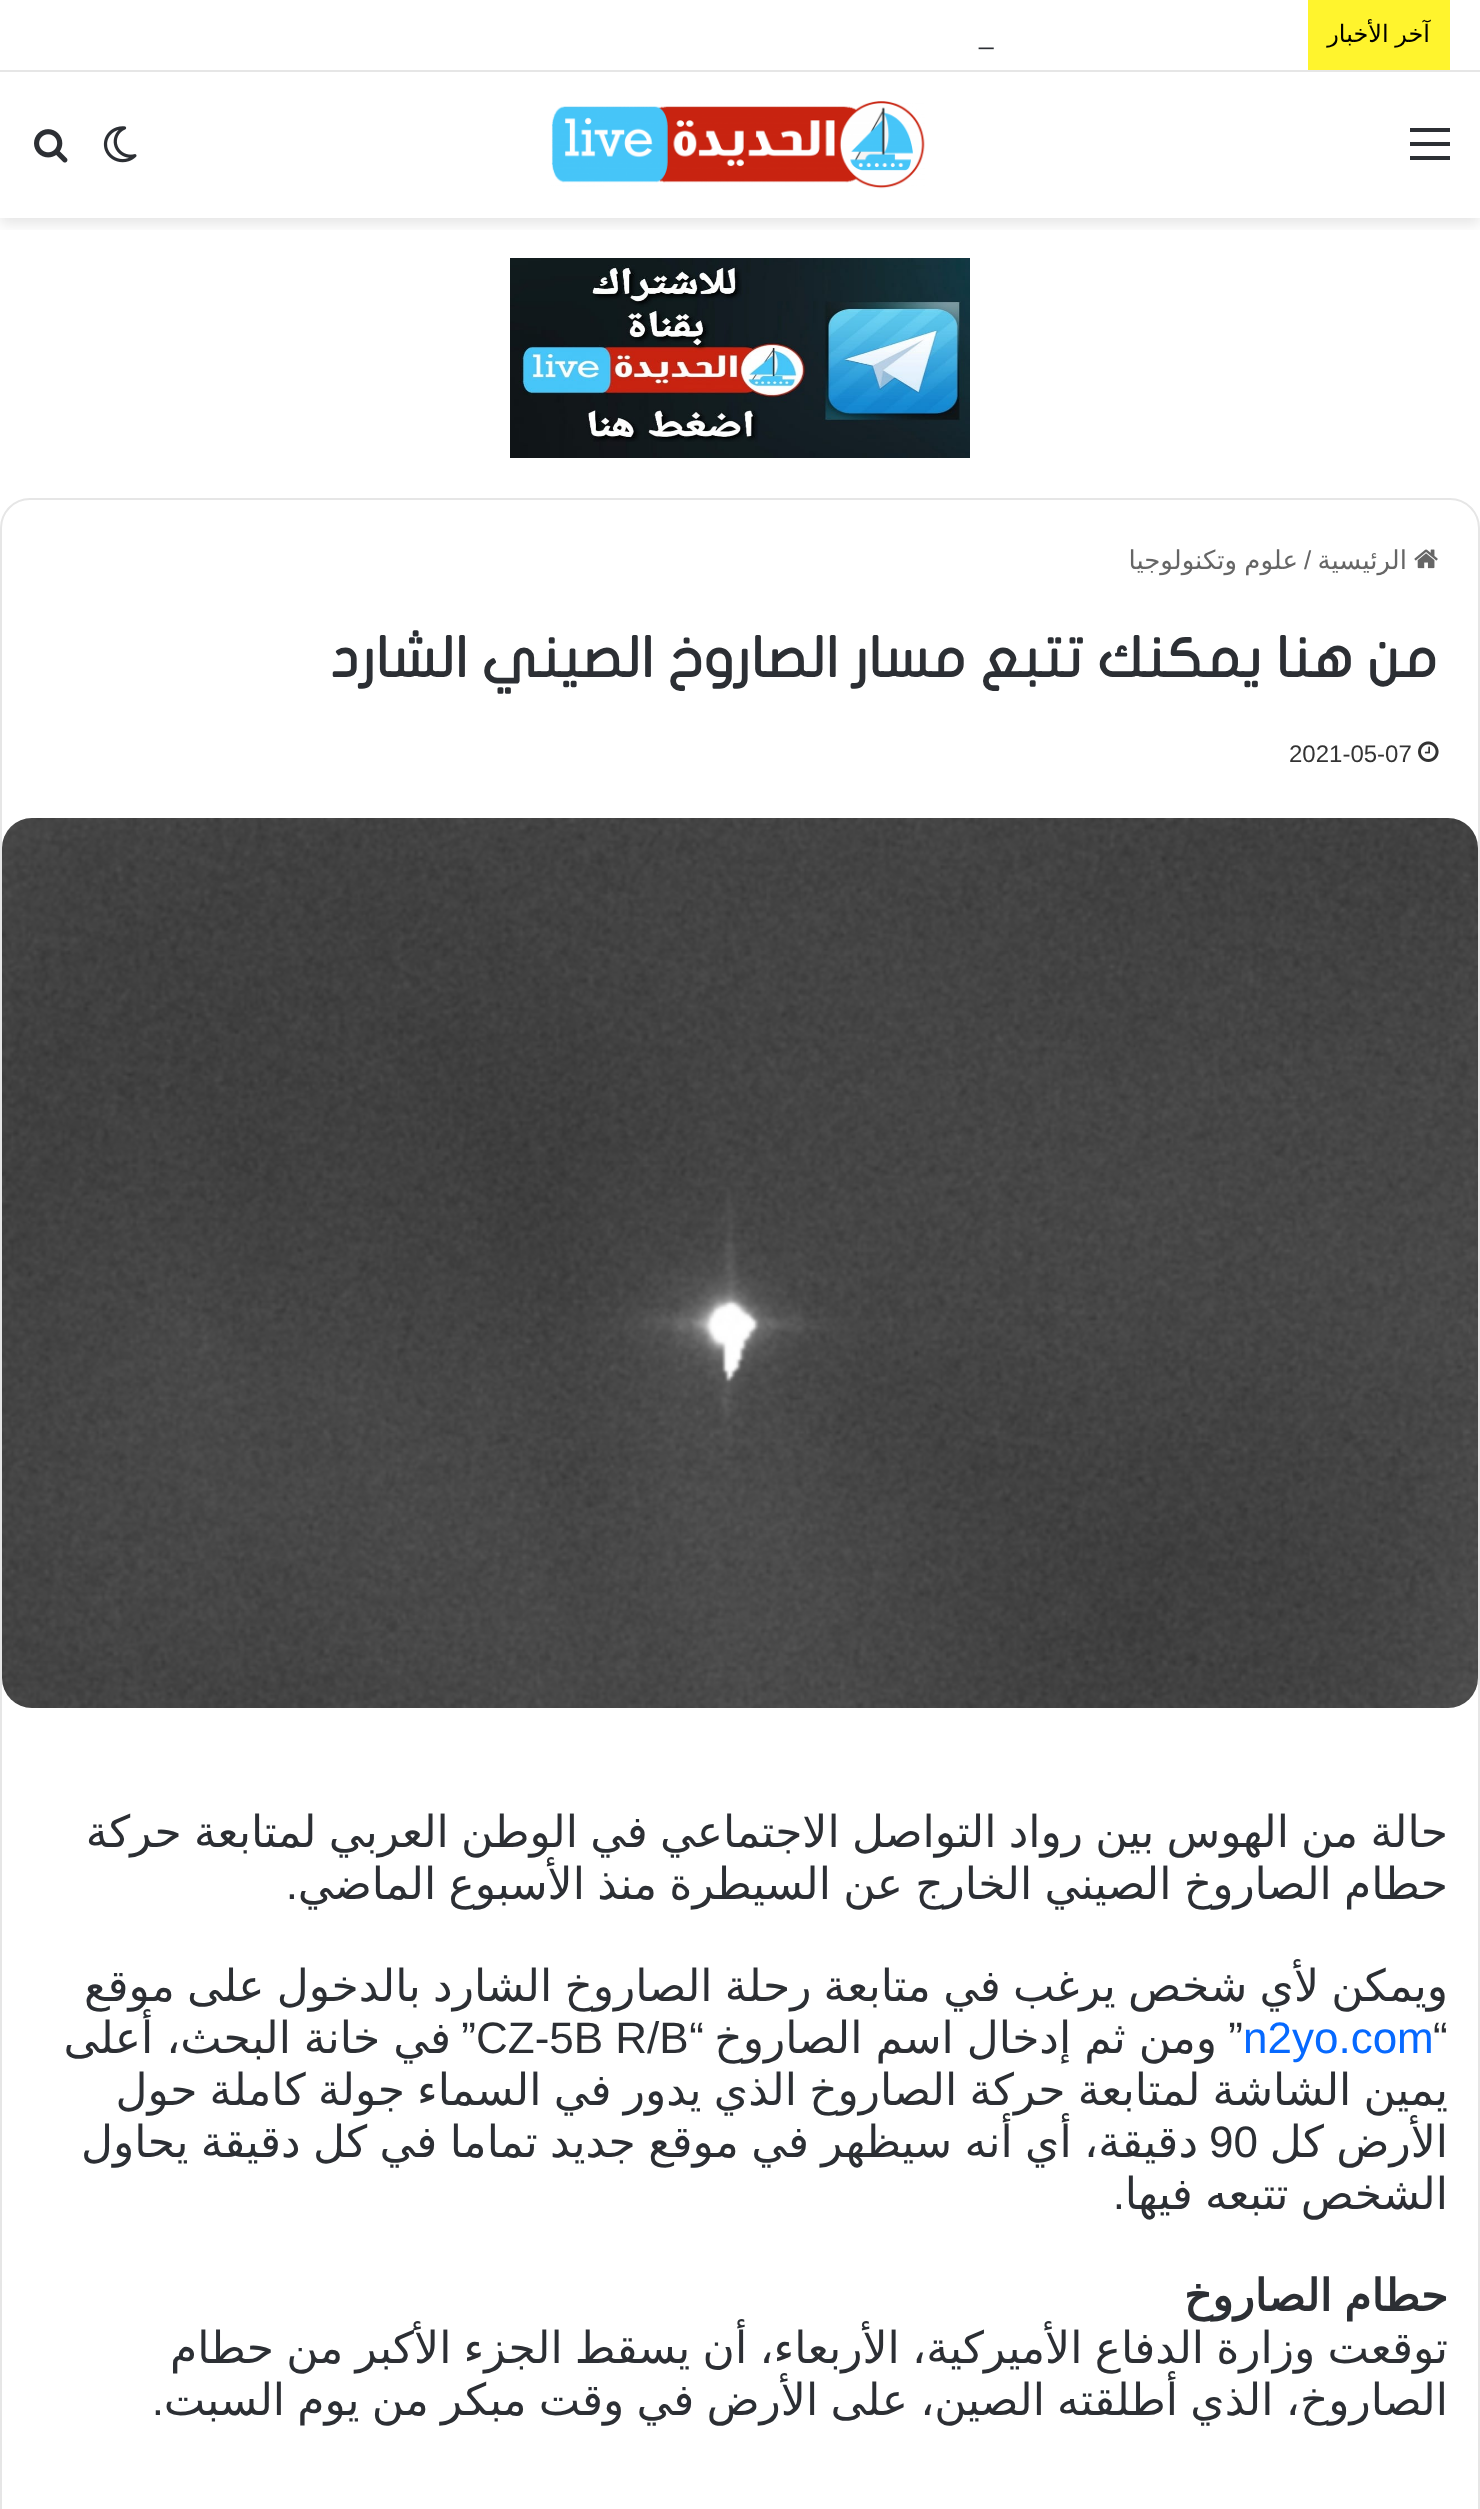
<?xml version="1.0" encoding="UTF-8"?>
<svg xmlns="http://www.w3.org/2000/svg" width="1480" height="2509">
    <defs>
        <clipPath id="clip1"><rect x="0" y="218" width="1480" height="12"/></clipPath>
        <filter id="blur1" x="-50%" y="-200%" width="200%" height="500%"><feGaussianBlur stdDeviation="7"/></filter>
    </defs>
    <rect width="100%" height="100%" fill="#FFFFFF"/>
    <g clip-path="url(#clip1)">
        <rect x="0" y="78" width="1480" height="146" fill="#000000" fill-opacity="0.1" filter="url(#blur1)"/>
    </g>
    <rect x="9" y="69" width="1462" height="1" fill="#FFFFFF"/>
    <rect x="0" y="70" width="1480" height="2" fill="#E6E6E6"/>
    <rect x="1308" y="0" width="142" height="70" fill="#FFF42D"/>
    <text x="1430" y="42" word-spacing="-1" font-family="DejaVu Sans" font-size="24" direction="rtl" fill="#000000">آخر الأخبار</text>
    <text x="979" y="44" font-family="Liberation Sans" font-size="26" fill="#2C2F34">_</text>
    <rect x="1410" y="142" width="40" height="4" fill="#2C2F34"/>
    <rect x="1410" y="128" width="40" height="4" fill="#2C2F34"/>
    <rect x="1410" y="156" width="40" height="4" fill="#2C2F34"/>
    <image x="551" y="101" width="374" height="88" href="img_01.png"/>
    <image x="103" y="126" width="34" height="37" href="img_02.png"/>
    <image x="34" y="129" width="34" height="34" href="img_03.png"/>
    <image x="510" y="258" width="460" height="200" href="img_04.png"/>
    <rect x="1" y="499" width="1478" height="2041" rx="29" fill="none" stroke="#E6E6E6" stroke-width="2"/>
    <image x="1414" y="549" width="24" height="20" href="img_05.png"/>
    <text x="1407" y="569" font-family="DejaVu Sans" font-size="26" direction="rtl" fill="#666666">الرئيسية</text>
    <text x="1304" y="569" font-family="Liberation Sans" font-size="26" fill="#666666">/</text>
    <text x="1298" y="569" word-spacing="-1" font-family="DejaVu Sans" font-size="26" direction="rtl" fill="#666666">علوم وتكنولوجيا</text>
    <text x="1438" y="677" font-family="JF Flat" font-size="56" font-weight="700" direction="rtl" fill="#2C2F34">من هنا يمكنك تتبع مسار الصاروخ الصيني الشارد</text>
    <image x="1418" y="741" width="21" height="21" href="img_06.png"/>
    <text x="1289" y="762" font-family="Liberation Sans" font-size="24" fill="#333333">2021-05-07</text>
    <image x="2" y="818" width="1476" height="890" href="img_07.png"/>
    <text font-family="DejaVu Sans" font-size="44" direction="rtl" fill="#2C2F34">
        <tspan x="1448" y="1847" word-spacing="-1.75">حالة من الهوس بين رواد التواصل الاجتماعي في الوطن العربي لمتابعة حركة</tspan>
        <tspan x="1448" y="1899" word-spacing="-1.75">حطام الصاروخ الصيني الخارج عن السيطرة منذ الأسبوع الماضي</tspan>
    </text>
    <text x="298" y="1899" font-family="Liberation Sans" font-size="44" direction="rtl" fill="#2C2F34">.</text>
    <text x="1448" y="2001" word-spacing="-1.75" font-family="DejaVu Sans" font-size="44" direction="rtl" fill="#2C2F34">ويمكن لأي شخص يرغب في متابعة رحلة الصاروخ الشارد بالدخول على موقع</text>
    <text x="1433" y="2053" font-family="Liberation Sans" font-size="44" fill="#2C2F34">“</text>
    <text x="1243" y="2053" font-family="Liberation Sans" font-size="44" fill="#0669FF">n2yo.com</text>
    <text x="1243" y="2053" font-family="Liberation Sans" font-size="44" direction="rtl" fill="#2C2F34">”</text>
    <text x="1217" y="2053" word-spacing="-1" font-family="DejaVu Sans" font-size="44" direction="rtl" fill="#2C2F34">ومن ثم إدخال اسم الصاروخ</text>
    <text x="704" y="2053" font-family="Liberation Sans" font-size="44" direction="rtl" fill="#2C2F34">“</text>
    <text x="476" y="2053" font-family="Liberation Sans" font-size="44" fill="#2C2F34">CZ-5B R/B</text>
    <text x="476" y="2053" font-family="Liberation Sans" font-size="44" direction="rtl" fill="#2C2F34">”</text>
    <text x="451" y="2053" word-spacing="-1" font-family="DejaVu Sans" font-size="44" direction="rtl" fill="#2C2F34">في خانة البحث، أعلى</text>
    <text font-family="DejaVu Sans" font-size="44" direction="rtl" fill="#2C2F34">
        <tspan x="1448" y="2105" word-spacing="-1.75">يمين الشاشة لمتابعة حركة الصاروخ الذي يدور في السماء جولة كاملة حول</tspan>
        <tspan x="1448" y="2157" word-spacing="-1.75">الأرض كل</tspan>
    </text>
    <text x="1198" y="2157" word-spacing="-1.6" font-family="DejaVu Sans" font-size="44" direction="rtl" fill="#2C2F34">دقيقة، أي أنه سيظهر في موقع جديد تماما في كل دقيقة يحاول</text>
    <text x="1209" y="2157" font-family="Liberation Sans" font-size="44" fill="#2C2F34">90</text>
    <text x="1448" y="2209" word-spacing="-1.75" font-family="DejaVu Sans" font-size="44" direction="rtl" fill="#2C2F34">الشخص تتبعه فيها</text>
    <text x="1125" y="2209" font-family="Liberation Sans" font-size="44" direction="rtl" fill="#2C2F34">.</text>
    <text x="1448" y="2311" word-spacing="-1.75" font-family="DejaVu Sans" font-size="44" font-weight="700" direction="rtl" fill="#2C2F34">حطام الصاروخ</text>
    <text font-family="DejaVu Sans" font-size="44" direction="rtl" fill="#2C2F34">
        <tspan x="1448" y="2363" word-spacing="-1.75">توقعت وزارة الدفاع الأميركية، الأربعاء، أن يسقط الجزء الأكبر من حطام</tspan>
        <tspan x="1448" y="2415" word-spacing="-1.75">الصاروخ، الذي أطلقته الصين، على الأرض في وقت مبكر من يوم السبت</tspan>
    </text>
    <text x="164" y="2415" font-family="Liberation Sans" font-size="44" direction="rtl" fill="#2C2F34">.</text>
</svg>
